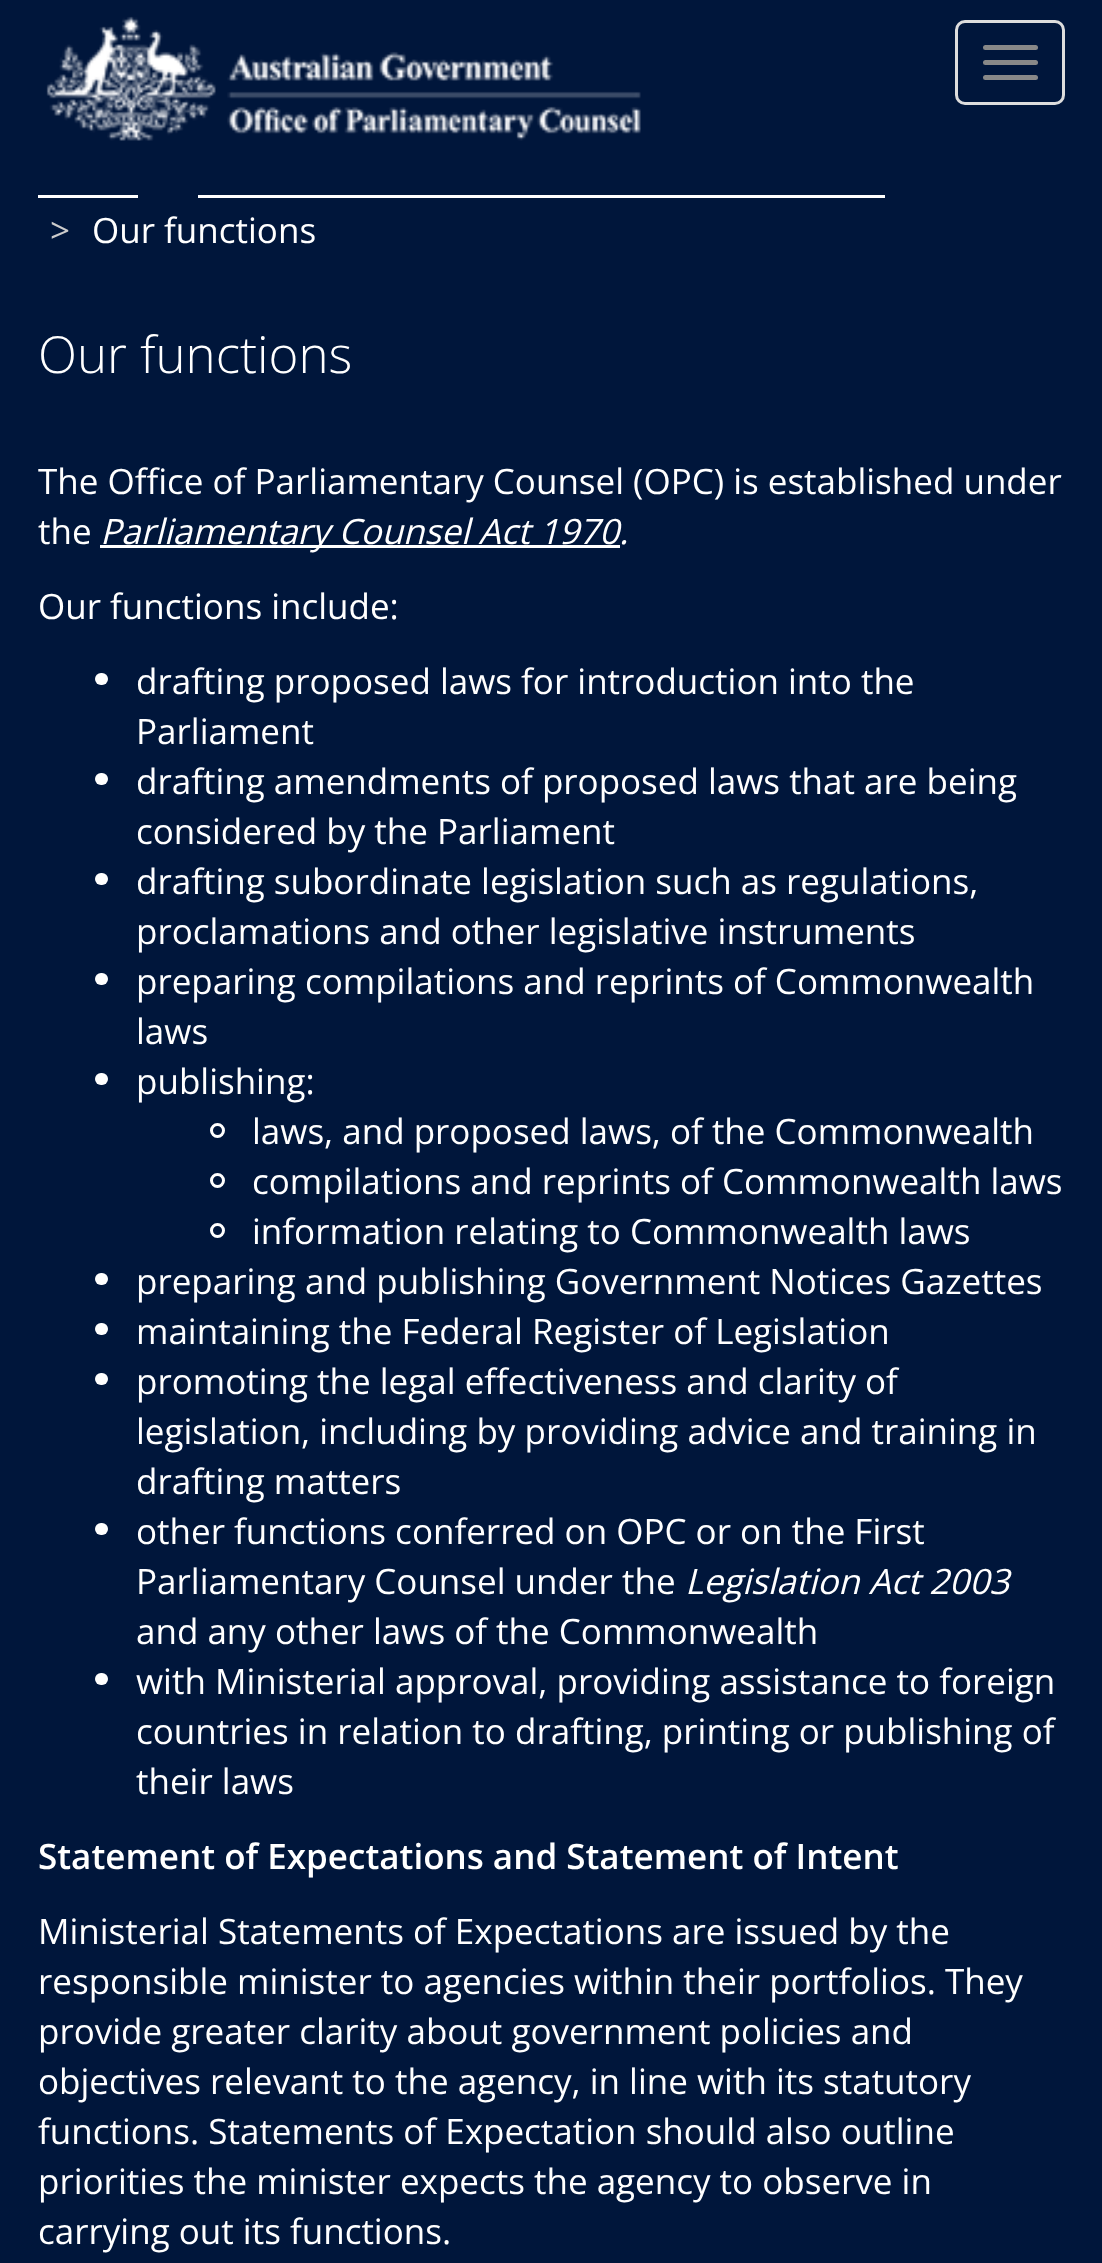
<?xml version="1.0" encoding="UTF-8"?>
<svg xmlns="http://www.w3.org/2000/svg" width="1102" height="2263">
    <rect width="100%" height="100%" fill="#00163B"/>
    <image x="46" y="16" width="595" height="125" href="img_01.png"/>
    <rect x="956.5" y="21.5" width="107" height="82" rx="8.5" fill="none" stroke="#DDDDDD" stroke-width="3"/>
    <rect x="983" y="45" width="55" height="5" rx="2.5" fill="#888888"/>
    <rect x="983" y="60" width="55" height="5" rx="2.5" fill="#888888"/>
    <rect x="983" y="75" width="55" height="5" rx="2.5" fill="#888888"/>
    <rect x="38" y="195" width="100" height="3" fill="#FFFFFF"/>
    <rect x="198" y="195" width="687" height="3" fill="#FFFFFF"/>
    <text x="50" y="243" font-family="Open Sans" font-size="35" fill="#CCCCCC">&gt;</text>
    <text x="92" y="243" font-family="Open Sans" font-size="35" fill="#FFFFFF">Our functions</text>
    <text x="38" y="373" font-family="Open Sans" font-size="51" font-weight="300" fill="#FFFFFF">Our functions</text>
    <text font-family="Open Sans" font-size="35" fill="#FFFFFF">
        <tspan x="38" y="494">The Office of Parliamentary Counsel (OPC) is established under</tspan>
        <tspan x="38" y="544">the</tspan>
    </text>
    <rect x="100" y="545" width="520" height="3" fill="#FFFFFF"/>
    <text x="100" y="544" font-family="Open Sans" font-size="35" font-style="italic" fill="#FFFFFF">Parliamentary Counsel Act 1970.</text>
    <text x="38" y="619" font-family="Open Sans" font-size="35" fill="#FFFFFF">Our functions include:</text>
    <rect x="95" y="673" width="13" height="12" rx="6" fill="#FFFFFF"/>
    <text font-family="Open Sans" font-size="35" fill="#FFFFFF">
        <tspan x="136" y="694">drafting proposed laws for introduction into the</tspan>
        <tspan x="136" y="744">Parliament</tspan>
    </text>
    <rect x="95" y="773" width="13" height="12" rx="6" fill="#FFFFFF"/>
    <text font-family="Open Sans" font-size="35" fill="#FFFFFF">
        <tspan x="136" y="794">drafting amendments of proposed laws that are being</tspan>
        <tspan x="136" y="844">considered by the Parliament</tspan>
    </text>
    <rect x="95" y="873" width="13" height="12" rx="6" fill="#FFFFFF"/>
    <text font-family="Open Sans" font-size="35" fill="#FFFFFF">
        <tspan x="136" y="894">drafting subordinate legislation such as regulations,</tspan>
        <tspan x="136" y="944">proclamations and other legislative instruments</tspan>
    </text>
    <rect x="95" y="973" width="13" height="12" rx="6" fill="#FFFFFF"/>
    <text font-family="Open Sans" font-size="35" fill="#FFFFFF">
        <tspan x="136" y="994">preparing compilations and reprints of Commonwealth</tspan>
        <tspan x="136" y="1044">laws</tspan>
    </text>
    <rect x="95" y="1073" width="13" height="12" rx="6" fill="#FFFFFF"/>
    <text x="136" y="1094" font-family="Open Sans" font-size="35" fill="#FFFFFF">publishing:</text>
    <circle cx="217.5" cy="1130.5" r="6" fill="none" stroke="#FFFFFF" stroke-width="3"/>
    <text x="252" y="1144" font-family="Open Sans" font-size="35" fill="#FFFFFF">laws, and proposed laws, of the Commonwealth</text>
    <circle cx="217.5" cy="1180.5" r="6" fill="none" stroke="#FFFFFF" stroke-width="3"/>
    <text x="252" y="1194" font-family="Open Sans" font-size="35" fill="#FFFFFF">compilations and reprints of Commonwealth laws</text>
    <circle cx="217.5" cy="1230.5" r="6" fill="none" stroke="#FFFFFF" stroke-width="3"/>
    <text x="252" y="1244" font-family="Open Sans" font-size="35" fill="#FFFFFF">information relating to Commonwealth laws</text>
    <rect x="95" y="1273" width="13" height="12" rx="6" fill="#FFFFFF"/>
    <text x="136" y="1294" font-family="Open Sans" font-size="35" fill="#FFFFFF">preparing and publishing Government Notices Gazettes</text>
    <rect x="95" y="1323" width="13" height="12" rx="6" fill="#FFFFFF"/>
    <text x="136" y="1344" font-family="Open Sans" font-size="35" fill="#FFFFFF">maintaining the Federal Register of Legislation</text>
    <rect x="95" y="1373" width="13" height="12" rx="6" fill="#FFFFFF"/>
    <text font-family="Open Sans" font-size="35" fill="#FFFFFF">
        <tspan x="136" y="1394">promoting the legal effectiveness and clarity of</tspan>
        <tspan x="136" y="1444">legislation, including by providing advice and training in</tspan>
        <tspan x="136" y="1494">drafting matters</tspan>
    </text>
    <rect x="95" y="1523" width="13" height="12" rx="6" fill="#FFFFFF"/>
    <text font-family="Open Sans" font-size="35" fill="#FFFFFF">
        <tspan x="136" y="1544">other functions conferred on OPC or on the First</tspan>
        <tspan x="136" y="1594">Parliamentary Counsel under the</tspan>
    </text>
    <text x="685" y="1594" font-family="Open Sans" font-size="35" font-style="italic" fill="#FFFFFF">Legislation Act 2003</text>
    <text x="136" y="1644" font-family="Open Sans" font-size="35" fill="#FFFFFF">and any other laws of the Commonwealth</text>
    <rect x="95" y="1673" width="13" height="12" rx="6" fill="#FFFFFF"/>
    <text font-family="Open Sans" font-size="35" fill="#FFFFFF">
        <tspan x="136" y="1694">with Ministerial approval, providing assistance to foreign</tspan>
        <tspan x="136" y="1744">countries in relation to drafting, printing or publishing of</tspan>
        <tspan x="136" y="1794">their laws</tspan>
    </text>
    <text x="38" y="1869" font-family="Open Sans" font-size="35" font-weight="600" fill="#FFFFFF">Statement of Expectations and Statement of Intent</text>
    <text font-family="Open Sans" font-size="35" fill="#FFFFFF">
        <tspan x="38" y="1944">Ministerial Statements of Expectations are issued by the</tspan>
        <tspan x="38" y="1994">responsible minister to agencies within their portfolios. They</tspan>
        <tspan x="38" y="2044">provide greater clarity about government policies and</tspan>
        <tspan x="38" y="2094">objectives relevant to the agency, in line with its statutory</tspan>
        <tspan x="38" y="2144">functions. Statements of Expectation should also outline</tspan>
        <tspan x="38" y="2194">priorities the minister expects the agency to observe in</tspan>
        <tspan x="38" y="2244">carrying out its functions.</tspan>
    </text>
</svg>
